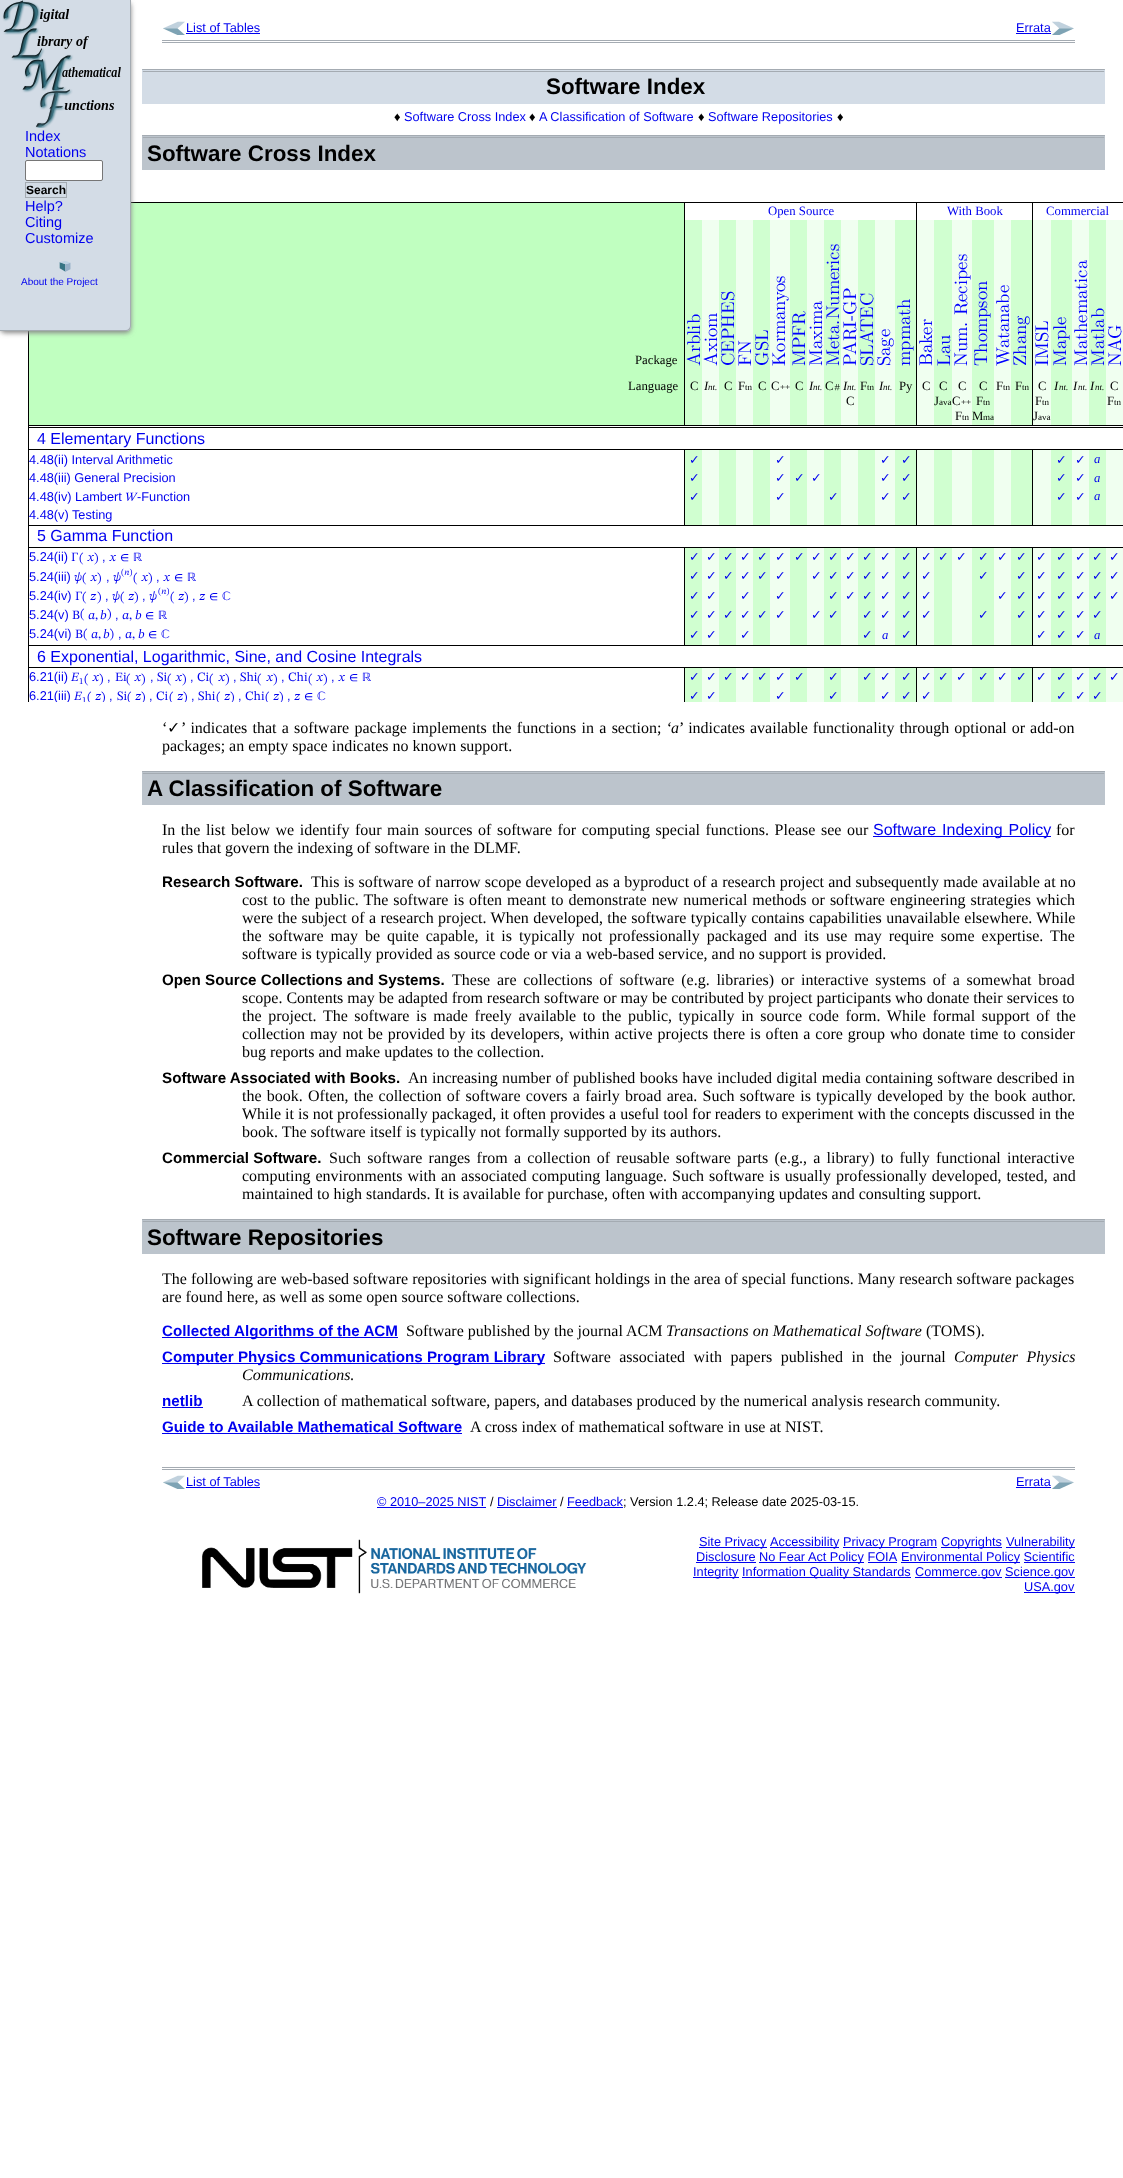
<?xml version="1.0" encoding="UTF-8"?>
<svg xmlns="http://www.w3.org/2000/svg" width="1123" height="2178">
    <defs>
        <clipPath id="clip1"><rect x="28" y="202" width="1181" height="500"/></clipPath>
        <filter id="blur1" x="-50%" y="-200%" width="200%" height="500%"><feGaussianBlur stdDeviation="2.5"/></filter>
    </defs>
    <rect width="100%" height="100%" fill="#FFFFFF"/>
    <rect x="162" y="40" width="913" height="1" fill="#A4ABB2"/>
    <rect x="162" y="42" width="913" height="1" fill="#A4ABB2"/>
    <image x="163" y="21" width="22" height="14" href="img_01.png"/>
    <text x="186" y="32" font-family="Liberation Sans" font-size="12.75" fill="#0000EE">List of Tables</text>
    <rect x="186" y="33" width="74" height="1" fill="#0000EE"/>
    <text x="1016" y="32" font-family="Liberation Sans" font-size="12.75" fill="#0000EE">Errata</text>
    <rect x="1016" y="33" width="35" height="1" fill="#0000EE"/>
    <image x="1052" y="21" width="22" height="14" href="img_02.png"/>
    <rect x="142" y="70" width="963" height="34" fill="#D3DCE6"/>
    <rect x="142" y="69" width="963" height="1" fill="#A4ABB2"/>
    <rect x="142" y="71" width="963" height="1" fill="#A4ABB2"/>
    <path d="M 1105 69 V 104 L 1104 103 V 72 Z" fill="#D3DCE6"/>
    <path d="M 142 104 V 69 L 143 72 V 103 Z" fill="#D3DCE6"/>
    <text x="546" y="94" font-family="Liberation Sans" font-size="22.4" font-weight="700" fill="#000000">Software Index</text>
    <text x="394" y="121" font-family="Liberation Sans" font-size="12.75" fill="#000000">♦</text>
    <text x="404" y="121" font-family="Liberation Sans" font-size="12.75" fill="#0000EE">Software Cross Index</text>
    <text x="529" y="121" font-family="Liberation Sans" font-size="12.75" fill="#000000">♦</text>
    <text x="539" y="121" font-family="Liberation Sans" font-size="12.75" fill="#0000EE">A Classification of Software</text>
    <text x="698" y="121" font-family="Liberation Sans" font-size="12.75" fill="#000000">♦</text>
    <text x="708" y="121" font-family="Liberation Sans" font-size="12.75" fill="#0000EE">Software Repositories</text>
    <text x="837" y="121" font-family="Liberation Sans" font-size="12.75" fill="#000000">♦</text>
    <rect x="142" y="136" width="963" height="34" fill="#BCC4CC"/>
    <rect x="142" y="135" width="963" height="1" fill="#A4ABB2"/>
    <rect x="142" y="137" width="963" height="1" fill="#A4ABB2"/>
    <path d="M 1105 135 V 170 L 1104 169 V 138 Z" fill="#BCC4CC"/>
    <path d="M 142 170 V 135 L 143 138 V 169 Z" fill="#BCC4CC"/>
    <text x="147" y="161" font-family="Liberation Sans" font-size="22.4" font-weight="700" fill="#000000">Software Cross Index</text>
    <rect x="131" y="203" width="553" height="17" fill="#C0FFC0"/>
    <rect x="131" y="202" width="992" height="1" fill="#000000"/>
    <rect x="684" y="202" width="1" height="223" fill="#000000"/>
    <rect x="916" y="202" width="1" height="223" fill="#000000"/>
    <text x="768" y="215" font-family="Liberation Serif" font-size="12.75" fill="#0000EE">Open Source</text>
    <rect x="1032" y="202" width="1" height="223" fill="#000000"/>
    <text x="947" y="215" font-family="Liberation Serif" font-size="12.75" fill="#0000EE">With Book</text>
    <text x="1046" y="215" font-family="Liberation Serif" font-size="12.75" fill="#0000EE">Commercial</text>
    <rect x="29" y="220" width="655" height="205" fill="#C0FFC0"/>
    <rect x="28" y="331" width="1" height="94" fill="#000000"/>
    <text x="635" y="364" font-family="Liberation Serif" font-size="12.75" fill="#000000">Package</text>
    <rect x="685" y="220" width="17" height="205" fill="#D0FFD0"/>
    <image x="686" y="314" width="15" height="52" href="img_03.png"/>
    <rect x="702" y="220" width="17" height="205" fill="#F0FFF0"/>
    <image x="703" y="313" width="15" height="53" href="img_04.png"/>
    <rect x="719" y="220" width="17" height="205" fill="#D0FFD0"/>
    <image x="721" y="291" width="14" height="74" href="img_05.png"/>
    <rect x="736" y="220" width="17" height="205" fill="#F0FFF0"/>
    <image x="738" y="340" width="13" height="26" href="img_06.png"/>
    <rect x="753" y="220" width="17" height="205" fill="#D0FFD0"/>
    <image x="755" y="330" width="14" height="35" href="img_07.png"/>
    <rect x="770" y="220" width="20" height="205" fill="#F0FFF0"/>
    <image x="772" y="276" width="17" height="90" href="img_08.png"/>
    <rect x="790" y="220" width="17" height="205" fill="#D0FFD0"/>
    <image x="792" y="311" width="14" height="55" href="img_09.png"/>
    <rect x="807" y="220" width="17" height="205" fill="#F0FFF0"/>
    <image x="809" y="301" width="14" height="65" href="img_10.png"/>
    <rect x="824" y="220" width="17" height="205" fill="#D0FFD0"/>
    <image x="826" y="244" width="14" height="122" href="img_11.png"/>
    <rect x="841" y="220" width="17" height="205" fill="#F0FFF0"/>
    <image x="842" y="288" width="15" height="78" href="img_12.png"/>
    <rect x="858" y="220" width="17" height="205" fill="#D0FFD0"/>
    <image x="859" y="293" width="15" height="72" href="img_13.png"/>
    <rect x="875" y="220" width="20" height="205" fill="#F0FFF0"/>
    <image x="877" y="329" width="17" height="36" href="img_14.png"/>
    <rect x="895" y="220" width="21" height="205" fill="#D0FFD0"/>
    <image x="897" y="299" width="17" height="67" href="img_15.png"/>
    <rect x="917" y="220" width="17" height="205" fill="#F0FFF0"/>
    <image x="919" y="319" width="14" height="47" href="img_16.png"/>
    <rect x="934" y="220" width="18" height="205" fill="#D0FFD0"/>
    <image x="937" y="335" width="14" height="31" href="img_17.png"/>
    <rect x="952" y="220" width="20" height="205" fill="#F0FFF0"/>
    <image x="954" y="254" width="17" height="112" href="img_18.png"/>
    <rect x="972" y="220" width="22" height="205" fill="#D0FFD0"/>
    <image x="974" y="281" width="17" height="85" href="img_19.png"/>
    <rect x="994" y="220" width="17" height="205" fill="#F0FFF0"/>
    <image x="996" y="285" width="14" height="81" href="img_20.png"/>
    <rect x="1011" y="220" width="21" height="205" fill="#D0FFD0"/>
    <image x="1013" y="316" width="17" height="49" href="img_21.png"/>
    <rect x="1033" y="220" width="18" height="205" fill="#F0FFF0"/>
    <image x="1035" y="321" width="14" height="45" href="img_22.png"/>
    <rect x="1051" y="220" width="21" height="205" fill="#D0FFD0"/>
    <image x="1053" y="317" width="17" height="49" href="img_23.png"/>
    <rect x="1072" y="220" width="17" height="205" fill="#F0FFF0"/>
    <image x="1074" y="260" width="14" height="106" href="img_24.png"/>
    <rect x="1089" y="220" width="17" height="205" fill="#D0FFD0"/>
    <image x="1091" y="308" width="14" height="58" href="img_25.png"/>
    <rect x="1106" y="220" width="17" height="205" fill="#F0FFF0"/>
    <image x="1107" y="325" width="15" height="41" href="img_26.png"/>
    <text x="628" y="390" font-family="Liberation Serif" font-size="12.75" fill="#000000">Language</text>
    <text x="690" y="390" font-family="Liberation Serif" font-size="12.75" fill="#000000">C</text>
    <text x="704" y="390" font-family="Liberation Serif" font-size="12.75" font-style="italic" fill="#000000">I</text>
    <text x="708" y="390" font-family="Liberation Serif" font-size="9" font-style="italic" fill="#000000">nt.</text>
    <text x="724" y="390" font-family="Liberation Serif" font-size="12.75" fill="#000000">C</text>
    <text x="738" y="390" font-family="Liberation Serif" font-size="12.75" fill="#000000">F</text>
    <text x="745" y="390" font-family="Liberation Serif" font-size="9" fill="#000000">tn</text>
    <text x="758" y="390" font-family="Liberation Serif" font-size="12.75" fill="#000000">C</text>
    <text x="771" y="390" font-family="Liberation Serif" font-size="12.75" fill="#000000">C</text>
    <text x="780" y="390" font-family="Liberation Serif" font-size="9" fill="#000000">++</text>
    <text x="795" y="390" font-family="Liberation Serif" font-size="12.75" fill="#000000">C</text>
    <text x="809" y="390" font-family="Liberation Serif" font-size="12.75" font-style="italic" fill="#000000">I</text>
    <text x="813" y="390" font-family="Liberation Serif" font-size="9" font-style="italic" fill="#000000">nt.</text>
    <text x="825" y="390" font-family="Liberation Serif" font-size="12.75" fill="#000000">C</text>
    <text x="834" y="390" font-family="STIX Two Math" font-size="9" fill="#000000">#</text>
    <text x="843" y="390" font-family="Liberation Serif" font-size="12.75" font-style="italic" fill="#000000">I</text>
    <text x="847" y="390" font-family="Liberation Serif" font-size="9" font-style="italic" fill="#000000">nt.</text>
    <text x="846" y="405" font-family="Liberation Serif" font-size="12.75" fill="#000000">C</text>
    <text x="860" y="390" font-family="Liberation Serif" font-size="12.75" fill="#000000">F</text>
    <text x="867" y="390" font-family="Liberation Serif" font-size="9" fill="#000000">tn</text>
    <text x="879" y="390" font-family="Liberation Serif" font-size="12.75" font-style="italic" fill="#000000">I</text>
    <text x="883" y="390" font-family="Liberation Serif" font-size="9" font-style="italic" fill="#000000">nt.</text>
    <text x="899" y="390" font-family="Liberation Serif" font-size="12.75" fill="#000000">Py</text>
    <text x="922" y="390" font-family="Liberation Serif" font-size="12.75" fill="#000000">C</text>
    <text x="939" y="390" font-family="Liberation Serif" font-size="12.75" fill="#000000">C</text>
    <text x="934" y="405" font-family="Liberation Serif" font-size="12.75" fill="#000000">J</text>
    <text x="939" y="405" font-family="Liberation Serif" font-size="9" fill="#000000">ava</text>
    <text x="958" y="390" font-family="Liberation Serif" font-size="12.75" fill="#000000">C</text>
    <text x="952" y="405" font-family="Liberation Serif" font-size="12.75" fill="#000000">C</text>
    <text x="961" y="405" font-family="Liberation Serif" font-size="9" fill="#000000">++</text>
    <text x="955" y="420" font-family="Liberation Serif" font-size="12.75" fill="#000000">F</text>
    <text x="962" y="420" font-family="Liberation Serif" font-size="9" fill="#000000">tn</text>
    <text x="979" y="390" font-family="Liberation Serif" font-size="12.75" fill="#000000">C</text>
    <text x="976" y="405" font-family="Liberation Serif" font-size="12.75" fill="#000000">F</text>
    <text x="983" y="405" font-family="Liberation Serif" font-size="9" fill="#000000">tn</text>
    <text x="972" y="420" font-family="Liberation Serif" font-size="12.75" fill="#000000">M</text>
    <text x="983" y="420" font-family="Liberation Serif" font-size="9" fill="#000000">ma</text>
    <text x="996" y="390" font-family="Liberation Serif" font-size="12.75" fill="#000000">F</text>
    <text x="1003" y="390" font-family="Liberation Serif" font-size="9" fill="#000000">tn</text>
    <text x="1015" y="390" font-family="Liberation Serif" font-size="12.75" fill="#000000">F</text>
    <text x="1022" y="390" font-family="Liberation Serif" font-size="9" fill="#000000">tn</text>
    <text x="1038" y="390" font-family="Liberation Serif" font-size="12.75" fill="#000000">C</text>
    <text x="1035" y="405" font-family="Liberation Serif" font-size="12.75" fill="#000000">F</text>
    <text x="1042" y="405" font-family="Liberation Serif" font-size="9" fill="#000000">tn</text>
    <text x="1033" y="420" font-family="Liberation Serif" font-size="12.75" fill="#000000">J</text>
    <text x="1038" y="420" font-family="Liberation Serif" font-size="9" fill="#000000">ava</text>
    <text x="1054" y="390" font-family="Liberation Serif" font-size="12.75" font-style="italic" fill="#000000">I</text>
    <text x="1059" y="390" font-family="Liberation Serif" font-size="9" font-style="italic" fill="#000000">nt.</text>
    <text x="1073" y="390" font-family="Liberation Serif" font-size="12.75" font-style="italic" fill="#000000">I</text>
    <text x="1078" y="390" font-family="Liberation Serif" font-size="9" font-style="italic" fill="#000000">nt.</text>
    <text x="1090" y="390" font-family="Liberation Serif" font-size="12.75" font-style="italic" fill="#000000">I</text>
    <text x="1095" y="390" font-family="Liberation Serif" font-size="9" font-style="italic" fill="#000000">nt.</text>
    <text x="1110" y="390" font-family="Liberation Serif" font-size="12.75" fill="#000000">C</text>
    <text x="1107" y="405" font-family="Liberation Serif" font-size="12.75" fill="#000000">F</text>
    <text x="1114" y="405" font-family="Liberation Serif" font-size="9" fill="#000000">tn</text>
    <rect x="28" y="425" width="1095" height="1" fill="#000000"/>
    <rect x="28" y="427" width="1095" height="1" fill="#000000"/>
    <rect x="28" y="425" width="1" height="24" fill="#000000"/>
    <text x="37" y="444" font-family="Liberation Sans" font-size="16" fill="#0000EE">4 Elementary Functions</text>
    <rect x="28" y="449" width="1095" height="1" fill="#000000"/>
    <rect x="684" y="449" width="1" height="76" fill="#000000"/>
    <rect x="28" y="449" width="1" height="76" fill="#000000"/>
    <text x="29" y="464" font-family="Liberation Sans" font-size="12.75" fill="#0000EE">4.48(ii) Interval Arithmetic</text>
    <rect x="685" y="450" width="17" height="75" fill="#D0FFD0"/>
    <text x="689" y="464" font-family="DejaVu Sans" font-size="12.75" fill="#0000EE">✓</text>
    <rect x="702" y="450" width="17" height="75" fill="#F0FFF0"/>
    <rect x="719" y="450" width="17" height="75" fill="#D0FFD0"/>
    <rect x="736" y="450" width="17" height="75" fill="#F0FFF0"/>
    <rect x="753" y="450" width="17" height="75" fill="#D0FFD0"/>
    <rect x="770" y="450" width="20" height="75" fill="#F0FFF0"/>
    <text x="775" y="464" font-family="DejaVu Sans" font-size="12.75" fill="#0000EE">✓</text>
    <rect x="790" y="450" width="17" height="75" fill="#D0FFD0"/>
    <rect x="807" y="450" width="17" height="75" fill="#F0FFF0"/>
    <rect x="824" y="450" width="17" height="75" fill="#D0FFD0"/>
    <rect x="841" y="450" width="17" height="75" fill="#F0FFF0"/>
    <rect x="858" y="450" width="17" height="75" fill="#D0FFD0"/>
    <rect x="875" y="450" width="20" height="75" fill="#F0FFF0"/>
    <text x="880" y="464" font-family="DejaVu Sans" font-size="12.75" fill="#0000EE">✓</text>
    <rect x="895" y="450" width="21" height="75" fill="#D0FFD0"/>
    <rect x="916" y="449" width="1" height="76" fill="#000000"/>
    <text x="901" y="464" font-family="DejaVu Sans" font-size="12.75" fill="#0000EE">✓</text>
    <rect x="917" y="450" width="17" height="75" fill="#F0FFF0"/>
    <rect x="934" y="450" width="18" height="75" fill="#D0FFD0"/>
    <rect x="952" y="450" width="20" height="75" fill="#F0FFF0"/>
    <rect x="972" y="450" width="22" height="75" fill="#D0FFD0"/>
    <rect x="994" y="450" width="17" height="75" fill="#F0FFF0"/>
    <rect x="1011" y="450" width="21" height="75" fill="#D0FFD0"/>
    <rect x="1032" y="449" width="1" height="76" fill="#000000"/>
    <rect x="1033" y="450" width="18" height="75" fill="#F0FFF0"/>
    <rect x="1051" y="450" width="21" height="75" fill="#D0FFD0"/>
    <text x="1056" y="464" font-family="DejaVu Sans" font-size="12.75" fill="#0000EE">✓</text>
    <rect x="1072" y="450" width="17" height="75" fill="#F0FFF0"/>
    <text x="1075" y="464" font-family="DejaVu Sans" font-size="12.75" fill="#0000EE">✓</text>
    <rect x="1089" y="450" width="17" height="75" fill="#D0FFD0"/>
    <text x="1094" y="463" font-family="Liberation Serif" font-size="12.75" font-style="italic" fill="#0000EE">a</text>
    <rect x="1106" y="450" width="17" height="75" fill="#F0FFF0"/>
    <text x="29" y="482" font-family="Liberation Sans" font-size="12.75" fill="#0000EE">4.48(iii) General Precision</text>
    <text x="689" y="482" font-family="DejaVu Sans" font-size="12.75" fill="#0000EE">✓</text>
    <text x="775" y="482" font-family="DejaVu Sans" font-size="12.75" fill="#0000EE">✓</text>
    <text x="794" y="482" font-family="DejaVu Sans" font-size="12.75" fill="#0000EE">✓</text>
    <text x="811" y="482" font-family="DejaVu Sans" font-size="12.75" fill="#0000EE">✓</text>
    <text x="880" y="482" font-family="DejaVu Sans" font-size="12.75" fill="#0000EE">✓</text>
    <text x="901" y="482" font-family="DejaVu Sans" font-size="12.75" fill="#0000EE">✓</text>
    <text x="1056" y="482" font-family="DejaVu Sans" font-size="12.75" fill="#0000EE">✓</text>
    <text x="1075" y="482" font-family="DejaVu Sans" font-size="12.75" fill="#0000EE">✓</text>
    <text x="1094" y="482" font-family="Liberation Serif" font-size="12.75" font-style="italic" fill="#0000EE">a</text>
    <text x="29" y="501" font-family="Liberation Sans" font-size="12.75" fill="#0000EE">4.48(iv) Lambert</text>
    <text x="125" y="501" font-family="STIX Two Math" font-size="12.75" fill="#0000EE">𝑊</text>
    <text x="137" y="501" font-family="Liberation Sans" font-size="12.75" fill="#0000EE">-Function</text>
    <text x="689" y="501" font-family="DejaVu Sans" font-size="12.75" fill="#0000EE">✓</text>
    <text x="775" y="501" font-family="DejaVu Sans" font-size="12.75" fill="#0000EE">✓</text>
    <text x="828" y="501" font-family="DejaVu Sans" font-size="12.75" fill="#0000EE">✓</text>
    <text x="880" y="501" font-family="DejaVu Sans" font-size="12.75" fill="#0000EE">✓</text>
    <text x="901" y="501" font-family="DejaVu Sans" font-size="12.75" fill="#0000EE">✓</text>
    <text x="1056" y="501" font-family="DejaVu Sans" font-size="12.75" fill="#0000EE">✓</text>
    <text x="1075" y="501" font-family="DejaVu Sans" font-size="12.75" fill="#0000EE">✓</text>
    <text x="1094" y="500" font-family="Liberation Serif" font-size="12.75" font-style="italic" fill="#0000EE">a</text>
    <text x="29" y="519" font-family="Liberation Sans" font-size="12.75" fill="#0000EE">4.48(v) Testing</text>
    <rect x="28" y="525" width="1095" height="1" fill="#000000"/>
    <rect x="28" y="525" width="1" height="22" fill="#000000"/>
    <text x="37" y="541" font-family="Liberation Sans" font-size="16" fill="#0000EE">5 Gamma Function</text>
    <rect x="28" y="547" width="1095" height="1" fill="#000000"/>
    <rect x="684" y="547" width="1" height="98" fill="#000000"/>
    <rect x="28" y="547" width="1" height="98" fill="#000000"/>
    <text x="29" y="561" font-family="Liberation Sans" font-size="12.75" fill="#0000EE">5.24(ii)</text>
    <text x="71" y="561" font-family="STIX Two Math" font-size="12.75" fill="#0000EE">Γ</text>
    <text x="79" y="562" font-family="STIX Two Math" font-size="12.75" fill="#0000EE">(</text>
    <text x="87" y="561" font-family="STIX Two Math" font-size="12.75" fill="#0000EE">𝑥</text>
    <text x="94" y="562" font-family="STIX Two Math" font-size="12.75" fill="#0000EE">)</text>
    <text x="102" y="561" font-family="Liberation Sans" font-size="12.75" fill="#0000EE">,</text>
    <text x="109" y="561" font-family="STIX Two Math" font-size="12.75" fill="#0000EE">𝑥</text>
    <text x="120" y="561" font-family="STIX Two Math" font-size="12.75" fill="#0000EE">∈</text>
    <text x="133" y="561" font-family="STIX Two Math" font-size="12.75" fill="#0000EE">ℝ</text>
    <rect x="685" y="548" width="17" height="97" fill="#D0FFD0"/>
    <text x="689" y="561" font-family="DejaVu Sans" font-size="12.75" fill="#0000EE">✓</text>
    <rect x="702" y="548" width="17" height="97" fill="#F0FFF0"/>
    <text x="706" y="561" font-family="DejaVu Sans" font-size="12.75" fill="#0000EE">✓</text>
    <rect x="719" y="548" width="17" height="97" fill="#D0FFD0"/>
    <text x="723" y="561" font-family="DejaVu Sans" font-size="12.75" fill="#0000EE">✓</text>
    <rect x="736" y="548" width="17" height="97" fill="#F0FFF0"/>
    <text x="740" y="561" font-family="DejaVu Sans" font-size="12.75" fill="#0000EE">✓</text>
    <rect x="753" y="548" width="17" height="97" fill="#D0FFD0"/>
    <text x="757" y="561" font-family="DejaVu Sans" font-size="12.75" fill="#0000EE">✓</text>
    <rect x="770" y="548" width="20" height="97" fill="#F0FFF0"/>
    <text x="775" y="561" font-family="DejaVu Sans" font-size="12.75" fill="#0000EE">✓</text>
    <rect x="790" y="548" width="17" height="97" fill="#D0FFD0"/>
    <text x="794" y="561" font-family="DejaVu Sans" font-size="12.75" fill="#0000EE">✓</text>
    <rect x="807" y="548" width="17" height="97" fill="#F0FFF0"/>
    <text x="811" y="561" font-family="DejaVu Sans" font-size="12.75" fill="#0000EE">✓</text>
    <rect x="824" y="548" width="17" height="97" fill="#D0FFD0"/>
    <text x="828" y="561" font-family="DejaVu Sans" font-size="12.75" fill="#0000EE">✓</text>
    <rect x="841" y="548" width="17" height="97" fill="#F0FFF0"/>
    <text x="845" y="561" font-family="DejaVu Sans" font-size="12.75" fill="#0000EE">✓</text>
    <rect x="858" y="548" width="17" height="97" fill="#D0FFD0"/>
    <text x="862" y="561" font-family="DejaVu Sans" font-size="12.75" fill="#0000EE">✓</text>
    <rect x="875" y="548" width="20" height="97" fill="#F0FFF0"/>
    <text x="880" y="561" font-family="DejaVu Sans" font-size="12.75" fill="#0000EE">✓</text>
    <rect x="895" y="548" width="21" height="97" fill="#D0FFD0"/>
    <rect x="916" y="547" width="1" height="98" fill="#000000"/>
    <text x="901" y="561" font-family="DejaVu Sans" font-size="12.75" fill="#0000EE">✓</text>
    <rect x="917" y="548" width="17" height="97" fill="#F0FFF0"/>
    <text x="921" y="561" font-family="DejaVu Sans" font-size="12.75" fill="#0000EE">✓</text>
    <rect x="934" y="548" width="18" height="97" fill="#D0FFD0"/>
    <text x="938" y="561" font-family="DejaVu Sans" font-size="12.75" fill="#0000EE">✓</text>
    <rect x="952" y="548" width="20" height="97" fill="#F0FFF0"/>
    <text x="956" y="561" font-family="DejaVu Sans" font-size="12.75" fill="#0000EE">✓</text>
    <rect x="972" y="548" width="22" height="97" fill="#D0FFD0"/>
    <text x="978" y="561" font-family="DejaVu Sans" font-size="12.75" fill="#0000EE">✓</text>
    <rect x="994" y="548" width="17" height="97" fill="#F0FFF0"/>
    <text x="997" y="561" font-family="DejaVu Sans" font-size="12.75" fill="#0000EE">✓</text>
    <rect x="1011" y="548" width="21" height="97" fill="#D0FFD0"/>
    <rect x="1032" y="547" width="1" height="98" fill="#000000"/>
    <text x="1016" y="561" font-family="DejaVu Sans" font-size="12.75" fill="#0000EE">✓</text>
    <rect x="1033" y="548" width="18" height="97" fill="#F0FFF0"/>
    <text x="1036" y="561" font-family="DejaVu Sans" font-size="12.75" fill="#0000EE">✓</text>
    <rect x="1051" y="548" width="21" height="97" fill="#D0FFD0"/>
    <text x="1056" y="561" font-family="DejaVu Sans" font-size="12.75" fill="#0000EE">✓</text>
    <rect x="1072" y="548" width="17" height="97" fill="#F0FFF0"/>
    <text x="1075" y="561" font-family="DejaVu Sans" font-size="12.75" fill="#0000EE">✓</text>
    <rect x="1089" y="548" width="17" height="97" fill="#D0FFD0"/>
    <text x="1092" y="561" font-family="DejaVu Sans" font-size="12.75" fill="#0000EE">✓</text>
    <rect x="1106" y="548" width="17" height="97" fill="#F0FFF0"/>
    <text x="1109" y="561" font-family="DejaVu Sans" font-size="12.75" fill="#0000EE">✓</text>
    <text x="29" y="581" font-family="Liberation Sans" font-size="12.75" fill="#0000EE">5.24(iii)</text>
    <text x="74" y="581" font-family="STIX Two Math" font-size="12.75" fill="#0000EE">𝜓</text>
    <text x="82" y="582" font-family="STIX Two Math" font-size="12.75" fill="#0000EE">(</text>
    <text x="90" y="581" font-family="STIX Two Math" font-size="12.75" fill="#0000EE">𝑥</text>
    <text x="97" y="582" font-family="STIX Two Math" font-size="12.75" fill="#0000EE">)</text>
    <text x="106" y="581" font-family="Liberation Sans" font-size="12.75" fill="#0000EE">,</text>
    <text x="113" y="581" font-family="STIX Two Math" font-size="12.75" fill="#0000EE">𝜓</text>
    <text x="121" y="575" font-family="STIX Two Math" font-size="9" fill="#0000EE">(𝑛)</text>
    <text x="133" y="582" font-family="STIX Two Math" font-size="12.75" fill="#0000EE">(</text>
    <text x="141" y="581" font-family="STIX Two Math" font-size="12.75" fill="#0000EE">𝑥</text>
    <text x="148" y="582" font-family="STIX Two Math" font-size="12.75" fill="#0000EE">)</text>
    <text x="156" y="581" font-family="Liberation Sans" font-size="12.75" fill="#0000EE">,</text>
    <text x="163" y="581" font-family="STIX Two Math" font-size="12.75" fill="#0000EE">𝑥</text>
    <text x="174" y="581" font-family="STIX Two Math" font-size="12.75" fill="#0000EE">∈</text>
    <text x="187" y="581" font-family="STIX Two Math" font-size="12.75" fill="#0000EE">ℝ</text>
    <text x="689" y="580" font-family="DejaVu Sans" font-size="12.75" fill="#0000EE">✓</text>
    <text x="706" y="580" font-family="DejaVu Sans" font-size="12.75" fill="#0000EE">✓</text>
    <text x="723" y="580" font-family="DejaVu Sans" font-size="12.75" fill="#0000EE">✓</text>
    <text x="740" y="580" font-family="DejaVu Sans" font-size="12.75" fill="#0000EE">✓</text>
    <text x="757" y="580" font-family="DejaVu Sans" font-size="12.75" fill="#0000EE">✓</text>
    <text x="775" y="580" font-family="DejaVu Sans" font-size="12.75" fill="#0000EE">✓</text>
    <text x="811" y="580" font-family="DejaVu Sans" font-size="12.75" fill="#0000EE">✓</text>
    <text x="828" y="580" font-family="DejaVu Sans" font-size="12.75" fill="#0000EE">✓</text>
    <text x="845" y="580" font-family="DejaVu Sans" font-size="12.75" fill="#0000EE">✓</text>
    <text x="862" y="580" font-family="DejaVu Sans" font-size="12.75" fill="#0000EE">✓</text>
    <text x="880" y="580" font-family="DejaVu Sans" font-size="12.75" fill="#0000EE">✓</text>
    <text x="901" y="580" font-family="DejaVu Sans" font-size="12.75" fill="#0000EE">✓</text>
    <text x="921" y="580" font-family="DejaVu Sans" font-size="12.75" fill="#0000EE">✓</text>
    <text x="978" y="580" font-family="DejaVu Sans" font-size="12.75" fill="#0000EE">✓</text>
    <text x="1016" y="580" font-family="DejaVu Sans" font-size="12.75" fill="#0000EE">✓</text>
    <text x="1036" y="580" font-family="DejaVu Sans" font-size="12.75" fill="#0000EE">✓</text>
    <text x="1056" y="580" font-family="DejaVu Sans" font-size="12.75" fill="#0000EE">✓</text>
    <text x="1075" y="580" font-family="DejaVu Sans" font-size="12.75" fill="#0000EE">✓</text>
    <text x="1092" y="580" font-family="DejaVu Sans" font-size="12.75" fill="#0000EE">✓</text>
    <text x="1109" y="580" font-family="DejaVu Sans" font-size="12.75" fill="#0000EE">✓</text>
    <text x="29" y="600" font-family="Liberation Sans" font-size="12.75" fill="#0000EE">5.24(iv)</text>
    <text x="75" y="600" font-family="STIX Two Math" font-size="12.75" fill="#0000EE">Γ</text>
    <text x="82" y="601" font-family="STIX Two Math" font-size="12.75" fill="#0000EE">(</text>
    <text x="90" y="600" font-family="STIX Two Math" font-size="12.75" fill="#0000EE">𝑧</text>
    <text x="97" y="601" font-family="STIX Two Math" font-size="12.75" fill="#0000EE">)</text>
    <text x="105" y="600" font-family="Liberation Sans" font-size="12.75" fill="#0000EE">,</text>
    <text x="112" y="600" font-family="STIX Two Math" font-size="12.75" fill="#0000EE">𝜓</text>
    <text x="120" y="601" font-family="STIX Two Math" font-size="12.75" fill="#0000EE">(</text>
    <text x="128" y="600" font-family="STIX Two Math" font-size="12.75" fill="#0000EE">𝑧</text>
    <text x="134" y="601" font-family="STIX Two Math" font-size="12.75" fill="#0000EE">)</text>
    <text x="142" y="600" font-family="Liberation Sans" font-size="12.75" fill="#0000EE">,</text>
    <text x="149" y="600" font-family="STIX Two Math" font-size="12.75" fill="#0000EE">𝜓</text>
    <text x="158" y="594" font-family="STIX Two Math" font-size="9" fill="#0000EE">(𝑛)</text>
    <text x="170" y="601" font-family="STIX Two Math" font-size="12.75" fill="#0000EE">(</text>
    <text x="178" y="600" font-family="STIX Two Math" font-size="12.75" fill="#0000EE">𝑧</text>
    <text x="184" y="601" font-family="STIX Two Math" font-size="12.75" fill="#0000EE">)</text>
    <text x="192" y="600" font-family="Liberation Sans" font-size="12.75" fill="#0000EE">,</text>
    <text x="199" y="600" font-family="STIX Two Math" font-size="12.75" fill="#0000EE">𝑧</text>
    <text x="209" y="600" font-family="STIX Two Math" font-size="12.75" fill="#0000EE">∈</text>
    <text x="222" y="600" font-family="STIX Two Math" font-size="12.75" fill="#0000EE">ℂ</text>
    <text x="689" y="600" font-family="DejaVu Sans" font-size="12.75" fill="#0000EE">✓</text>
    <text x="706" y="600" font-family="DejaVu Sans" font-size="12.75" fill="#0000EE">✓</text>
    <text x="740" y="600" font-family="DejaVu Sans" font-size="12.75" fill="#0000EE">✓</text>
    <text x="775" y="600" font-family="DejaVu Sans" font-size="12.75" fill="#0000EE">✓</text>
    <text x="828" y="600" font-family="DejaVu Sans" font-size="12.75" fill="#0000EE">✓</text>
    <text x="845" y="600" font-family="DejaVu Sans" font-size="12.75" fill="#0000EE">✓</text>
    <text x="862" y="600" font-family="DejaVu Sans" font-size="12.75" fill="#0000EE">✓</text>
    <text x="880" y="600" font-family="DejaVu Sans" font-size="12.75" fill="#0000EE">✓</text>
    <text x="901" y="600" font-family="DejaVu Sans" font-size="12.75" fill="#0000EE">✓</text>
    <text x="921" y="600" font-family="DejaVu Sans" font-size="12.75" fill="#0000EE">✓</text>
    <text x="997" y="600" font-family="DejaVu Sans" font-size="12.75" fill="#0000EE">✓</text>
    <text x="1016" y="600" font-family="DejaVu Sans" font-size="12.75" fill="#0000EE">✓</text>
    <text x="1036" y="600" font-family="DejaVu Sans" font-size="12.75" fill="#0000EE">✓</text>
    <text x="1056" y="600" font-family="DejaVu Sans" font-size="12.75" fill="#0000EE">✓</text>
    <text x="1075" y="600" font-family="DejaVu Sans" font-size="12.75" fill="#0000EE">✓</text>
    <text x="1092" y="600" font-family="DejaVu Sans" font-size="12.75" fill="#0000EE">✓</text>
    <text x="1109" y="600" font-family="DejaVu Sans" font-size="12.75" fill="#0000EE">✓</text>
    <text x="29" y="619" font-family="Liberation Sans" font-size="12.75" fill="#0000EE">5.24(v)</text>
    <text x="72" y="619" font-family="STIX Two Math" font-size="12.75" fill="#0000EE">B</text>
    <text x="80" y="618" font-family="STIX Two Math" font-size="12.75" fill="#0000EE">(</text>
    <text x="88" y="619" font-family="STIX Two Math" font-size="12.75" fill="#0000EE">𝑎,</text>
    <text x="100" y="619" font-family="STIX Two Math" font-size="12.75" fill="#0000EE">𝑏</text>
    <text x="107" y="618" font-family="STIX Two Math" font-size="12.75" fill="#0000EE">)</text>
    <text x="115" y="619" font-family="Liberation Sans" font-size="12.75" fill="#0000EE">,</text>
    <text x="122" y="619" font-family="STIX Two Math" font-size="12.75" fill="#0000EE">𝑎,</text>
    <text x="135" y="619" font-family="STIX Two Math" font-size="12.75" fill="#0000EE">𝑏</text>
    <text x="145" y="619" font-family="STIX Two Math" font-size="12.75" fill="#0000EE">∈</text>
    <text x="158" y="619" font-family="STIX Two Math" font-size="12.75" fill="#0000EE">ℝ</text>
    <text x="689" y="619" font-family="DejaVu Sans" font-size="12.75" fill="#0000EE">✓</text>
    <text x="706" y="619" font-family="DejaVu Sans" font-size="12.75" fill="#0000EE">✓</text>
    <text x="723" y="619" font-family="DejaVu Sans" font-size="12.75" fill="#0000EE">✓</text>
    <text x="740" y="619" font-family="DejaVu Sans" font-size="12.75" fill="#0000EE">✓</text>
    <text x="757" y="619" font-family="DejaVu Sans" font-size="12.75" fill="#0000EE">✓</text>
    <text x="775" y="619" font-family="DejaVu Sans" font-size="12.75" fill="#0000EE">✓</text>
    <text x="811" y="619" font-family="DejaVu Sans" font-size="12.75" fill="#0000EE">✓</text>
    <text x="828" y="619" font-family="DejaVu Sans" font-size="12.75" fill="#0000EE">✓</text>
    <text x="862" y="619" font-family="DejaVu Sans" font-size="12.75" fill="#0000EE">✓</text>
    <text x="880" y="619" font-family="DejaVu Sans" font-size="12.75" fill="#0000EE">✓</text>
    <text x="901" y="619" font-family="DejaVu Sans" font-size="12.75" fill="#0000EE">✓</text>
    <text x="921" y="619" font-family="DejaVu Sans" font-size="12.75" fill="#0000EE">✓</text>
    <text x="978" y="619" font-family="DejaVu Sans" font-size="12.75" fill="#0000EE">✓</text>
    <text x="1016" y="619" font-family="DejaVu Sans" font-size="12.75" fill="#0000EE">✓</text>
    <text x="1036" y="619" font-family="DejaVu Sans" font-size="12.75" fill="#0000EE">✓</text>
    <text x="1056" y="619" font-family="DejaVu Sans" font-size="12.75" fill="#0000EE">✓</text>
    <text x="1075" y="619" font-family="DejaVu Sans" font-size="12.75" fill="#0000EE">✓</text>
    <text x="1092" y="619" font-family="DejaVu Sans" font-size="12.75" fill="#0000EE">✓</text>
    <text x="29" y="638" font-family="Liberation Sans" font-size="12.75" fill="#0000EE">5.24(vi)</text>
    <text x="75" y="638" font-family="STIX Two Math" font-size="12.75" fill="#0000EE">B(</text>
    <text x="91" y="638" font-family="STIX Two Math" font-size="12.75" fill="#0000EE">𝑎,</text>
    <text x="103" y="638" font-family="STIX Two Math" font-size="12.75" fill="#0000EE">𝑏)</text>
    <text x="118" y="638" font-family="Liberation Sans" font-size="12.75" fill="#0000EE">,</text>
    <text x="125" y="638" font-family="STIX Two Math" font-size="12.75" fill="#0000EE">𝑎,</text>
    <text x="138" y="638" font-family="STIX Two Math" font-size="12.75" fill="#0000EE">𝑏</text>
    <text x="148" y="638" font-family="STIX Two Math" font-size="12.75" fill="#0000EE">∈</text>
    <text x="161" y="638" font-family="STIX Two Math" font-size="12.75" fill="#0000EE">ℂ</text>
    <text x="689" y="639" font-family="DejaVu Sans" font-size="12.75" fill="#0000EE">✓</text>
    <text x="706" y="639" font-family="DejaVu Sans" font-size="12.75" fill="#0000EE">✓</text>
    <text x="740" y="639" font-family="DejaVu Sans" font-size="12.75" fill="#0000EE">✓</text>
    <text x="862" y="639" font-family="DejaVu Sans" font-size="12.75" fill="#0000EE">✓</text>
    <text x="882" y="639" font-family="Liberation Serif" font-size="12.75" font-style="italic" fill="#0000EE">a</text>
    <text x="901" y="639" font-family="DejaVu Sans" font-size="12.75" fill="#0000EE">✓</text>
    <text x="1036" y="639" font-family="DejaVu Sans" font-size="12.75" fill="#0000EE">✓</text>
    <text x="1056" y="639" font-family="DejaVu Sans" font-size="12.75" fill="#0000EE">✓</text>
    <text x="1075" y="639" font-family="DejaVu Sans" font-size="12.75" fill="#0000EE">✓</text>
    <text x="1094" y="639" font-family="Liberation Serif" font-size="12.75" font-style="italic" fill="#0000EE">a</text>
    <rect x="28" y="645" width="1095" height="1" fill="#000000"/>
    <rect x="28" y="645" width="1" height="22" fill="#000000"/>
    <text x="37" y="662" font-family="Liberation Sans" font-size="16" fill="#0000EE">6 Exponential, Logarithmic, Sine, and Cosine Integrals</text>
    <rect x="28" y="667" width="1095" height="1" fill="#000000"/>
    <rect x="684" y="667" width="1" height="35" fill="#000000"/>
    <rect x="28" y="667" width="1" height="35" fill="#000000"/>
    <text x="29" y="681" font-family="Liberation Sans" font-size="12.75" fill="#0000EE">6.21(ii)</text>
    <text x="71" y="681" font-family="STIX Two Math" font-size="12.75" fill="#0000EE">𝐸</text>
    <text x="79" y="684" font-family="STIX Two Math" font-size="9" fill="#0000EE">1</text>
    <text x="84" y="683" font-family="STIX Two Math" font-size="12.75" fill="#0000EE">(</text>
    <text x="92" y="681" font-family="STIX Two Math" font-size="12.75" fill="#0000EE">𝑥</text>
    <text x="99" y="683" font-family="STIX Two Math" font-size="12.75" fill="#0000EE">)</text>
    <text x="107" y="681" font-family="Liberation Sans" font-size="12.75" fill="#0000EE">,</text>
    <text x="115" y="681" font-family="STIX Two Math" font-size="12.75" fill="#0000EE">Ei</text>
    <text x="126" y="683" font-family="STIX Two Math" font-size="12.75" fill="#0000EE">(</text>
    <text x="134" y="681" font-family="STIX Two Math" font-size="12.75" fill="#0000EE">𝑥</text>
    <text x="141" y="683" font-family="STIX Two Math" font-size="12.75" fill="#0000EE">)</text>
    <text x="150" y="681" font-family="Liberation Sans" font-size="12.75" fill="#0000EE">,</text>
    <text x="157" y="681" font-family="STIX Two Math" font-size="12.75" fill="#0000EE">Si</text>
    <text x="167" y="683" font-family="STIX Two Math" font-size="12.75" fill="#0000EE">(</text>
    <text x="175" y="681" font-family="STIX Two Math" font-size="12.75" fill="#0000EE">𝑥</text>
    <text x="182" y="683" font-family="STIX Two Math" font-size="12.75" fill="#0000EE">)</text>
    <text x="190" y="681" font-family="Liberation Sans" font-size="12.75" fill="#0000EE">,</text>
    <text x="197" y="681" font-family="STIX Two Math" font-size="12.75" fill="#0000EE">Ci</text>
    <text x="209" y="683" font-family="STIX Two Math" font-size="12.75" fill="#0000EE">(</text>
    <text x="218" y="681" font-family="STIX Two Math" font-size="12.75" fill="#0000EE">𝑥</text>
    <text x="225" y="683" font-family="STIX Two Math" font-size="12.75" fill="#0000EE">)</text>
    <text x="233" y="681" font-family="Liberation Sans" font-size="12.75" fill="#0000EE">,</text>
    <text x="240" y="681" font-family="STIX Two Math" font-size="12.75" fill="#0000EE">Shi</text>
    <text x="257" y="683" font-family="STIX Two Math" font-size="12.75" fill="#0000EE">(</text>
    <text x="266" y="681" font-family="STIX Two Math" font-size="12.75" fill="#0000EE">𝑥</text>
    <text x="273" y="683" font-family="STIX Two Math" font-size="12.75" fill="#0000EE">)</text>
    <text x="281" y="681" font-family="Liberation Sans" font-size="12.75" fill="#0000EE">,</text>
    <text x="288" y="681" font-family="STIX Two Math" font-size="12.75" fill="#0000EE">Chi</text>
    <text x="308" y="683" font-family="STIX Two Math" font-size="12.75" fill="#0000EE">(</text>
    <text x="316" y="681" font-family="STIX Two Math" font-size="12.75" fill="#0000EE">𝑥</text>
    <text x="323" y="683" font-family="STIX Two Math" font-size="12.75" fill="#0000EE">)</text>
    <text x="331" y="681" font-family="Liberation Sans" font-size="12.75" fill="#0000EE">,</text>
    <text x="338" y="681" font-family="STIX Two Math" font-size="12.75" fill="#0000EE">𝑥</text>
    <text x="349" y="681" font-family="STIX Two Math" font-size="12.75" fill="#0000EE">∈</text>
    <text x="362" y="681" font-family="STIX Two Math" font-size="12.75" fill="#0000EE">ℝ</text>
    <rect x="685" y="668" width="17" height="34" fill="#D0FFD0"/>
    <text x="689" y="681" font-family="DejaVu Sans" font-size="12.75" fill="#0000EE">✓</text>
    <rect x="702" y="668" width="17" height="34" fill="#F0FFF0"/>
    <text x="706" y="681" font-family="DejaVu Sans" font-size="12.75" fill="#0000EE">✓</text>
    <rect x="719" y="668" width="17" height="34" fill="#D0FFD0"/>
    <text x="723" y="681" font-family="DejaVu Sans" font-size="12.75" fill="#0000EE">✓</text>
    <rect x="736" y="668" width="17" height="34" fill="#F0FFF0"/>
    <text x="740" y="681" font-family="DejaVu Sans" font-size="12.75" fill="#0000EE">✓</text>
    <rect x="753" y="668" width="17" height="34" fill="#D0FFD0"/>
    <text x="757" y="681" font-family="DejaVu Sans" font-size="12.75" fill="#0000EE">✓</text>
    <rect x="770" y="668" width="20" height="34" fill="#F0FFF0"/>
    <text x="775" y="681" font-family="DejaVu Sans" font-size="12.75" fill="#0000EE">✓</text>
    <rect x="790" y="668" width="17" height="34" fill="#D0FFD0"/>
    <text x="794" y="681" font-family="DejaVu Sans" font-size="12.75" fill="#0000EE">✓</text>
    <rect x="807" y="668" width="17" height="34" fill="#F0FFF0"/>
    <rect x="824" y="668" width="17" height="34" fill="#D0FFD0"/>
    <text x="828" y="681" font-family="DejaVu Sans" font-size="12.75" fill="#0000EE">✓</text>
    <rect x="841" y="668" width="17" height="34" fill="#F0FFF0"/>
    <rect x="858" y="668" width="17" height="34" fill="#D0FFD0"/>
    <text x="862" y="681" font-family="DejaVu Sans" font-size="12.75" fill="#0000EE">✓</text>
    <rect x="875" y="668" width="20" height="34" fill="#F0FFF0"/>
    <text x="880" y="681" font-family="DejaVu Sans" font-size="12.75" fill="#0000EE">✓</text>
    <rect x="895" y="668" width="21" height="34" fill="#D0FFD0"/>
    <rect x="916" y="667" width="1" height="35" fill="#000000"/>
    <text x="901" y="681" font-family="DejaVu Sans" font-size="12.75" fill="#0000EE">✓</text>
    <rect x="917" y="668" width="17" height="34" fill="#F0FFF0"/>
    <text x="921" y="681" font-family="DejaVu Sans" font-size="12.75" fill="#0000EE">✓</text>
    <rect x="934" y="668" width="18" height="34" fill="#D0FFD0"/>
    <text x="938" y="681" font-family="DejaVu Sans" font-size="12.75" fill="#0000EE">✓</text>
    <rect x="952" y="668" width="20" height="34" fill="#F0FFF0"/>
    <text x="956" y="681" font-family="DejaVu Sans" font-size="12.75" fill="#0000EE">✓</text>
    <rect x="972" y="668" width="22" height="34" fill="#D0FFD0"/>
    <text x="978" y="681" font-family="DejaVu Sans" font-size="12.75" fill="#0000EE">✓</text>
    <rect x="994" y="668" width="17" height="34" fill="#F0FFF0"/>
    <text x="997" y="681" font-family="DejaVu Sans" font-size="12.75" fill="#0000EE">✓</text>
    <rect x="1011" y="668" width="21" height="34" fill="#D0FFD0"/>
    <rect x="1032" y="667" width="1" height="35" fill="#000000"/>
    <text x="1016" y="681" font-family="DejaVu Sans" font-size="12.75" fill="#0000EE">✓</text>
    <rect x="1033" y="668" width="18" height="34" fill="#F0FFF0"/>
    <text x="1036" y="681" font-family="DejaVu Sans" font-size="12.75" fill="#0000EE">✓</text>
    <rect x="1051" y="668" width="21" height="34" fill="#D0FFD0"/>
    <text x="1056" y="681" font-family="DejaVu Sans" font-size="12.75" fill="#0000EE">✓</text>
    <rect x="1072" y="668" width="17" height="34" fill="#F0FFF0"/>
    <text x="1075" y="681" font-family="DejaVu Sans" font-size="12.75" fill="#0000EE">✓</text>
    <rect x="1089" y="668" width="17" height="34" fill="#D0FFD0"/>
    <text x="1092" y="681" font-family="DejaVu Sans" font-size="12.75" fill="#0000EE">✓</text>
    <rect x="1106" y="668" width="17" height="34" fill="#F0FFF0"/>
    <text x="1109" y="681" font-family="DejaVu Sans" font-size="12.75" fill="#0000EE">✓</text>
    <g clip-path="url(#clip1)">
        <text x="29" y="700" font-family="Liberation Sans" font-size="12.75" fill="#0000EE">6.21(iii)</text>
    </g>
    <text x="74" y="700" font-family="STIX Two Math" font-size="12.75" fill="#0000EE">𝐸</text>
    <g clip-path="url(#clip1)">
        <text x="82" y="703" font-family="STIX Two Math" font-size="9" fill="#0000EE">1</text>
        <text x="87" y="701" font-family="STIX Two Math" font-size="12.75" fill="#0000EE">(</text>
    </g>
    <text x="95" y="700" font-family="STIX Two Math" font-size="12.75" fill="#0000EE">𝑧</text>
    <g clip-path="url(#clip1)">
        <text x="101" y="701" font-family="STIX Two Math" font-size="12.75" fill="#0000EE">)</text>
    </g>
    <text x="109" y="700" font-family="Liberation Sans" font-size="12.75" fill="#0000EE">,</text>
    <text x="117" y="700" font-family="STIX Two Math" font-size="12.75" fill="#0000EE">Si</text>
    <g clip-path="url(#clip1)">
        <text x="127" y="701" font-family="STIX Two Math" font-size="12.75" fill="#0000EE">(</text>
    </g>
    <text x="135" y="700" font-family="STIX Two Math" font-size="12.75" fill="#0000EE">𝑧</text>
    <g clip-path="url(#clip1)">
        <text x="141" y="701" font-family="STIX Two Math" font-size="12.75" fill="#0000EE">)</text>
    </g>
    <text x="149" y="700" font-family="Liberation Sans" font-size="12.75" fill="#0000EE">,</text>
    <text x="156" y="700" font-family="STIX Two Math" font-size="12.75" fill="#0000EE">Ci</text>
    <g clip-path="url(#clip1)">
        <text x="169" y="701" font-family="STIX Two Math" font-size="12.75" fill="#0000EE">(</text>
    </g>
    <text x="177" y="700" font-family="STIX Two Math" font-size="12.75" fill="#0000EE">𝑧</text>
    <g clip-path="url(#clip1)">
        <text x="183" y="701" font-family="STIX Two Math" font-size="12.75" fill="#0000EE">)</text>
    </g>
    <text x="191" y="700" font-family="Liberation Sans" font-size="12.75" fill="#0000EE">,</text>
    <text x="198" y="700" font-family="STIX Two Math" font-size="12.75" fill="#0000EE">Shi</text>
    <g clip-path="url(#clip1)">
        <text x="216" y="701" font-family="STIX Two Math" font-size="12.75" fill="#0000EE">(</text>
    </g>
    <text x="224" y="700" font-family="STIX Two Math" font-size="12.75" fill="#0000EE">𝑧</text>
    <g clip-path="url(#clip1)">
        <text x="230" y="701" font-family="STIX Two Math" font-size="12.75" fill="#0000EE">)</text>
    </g>
    <text x="238" y="700" font-family="Liberation Sans" font-size="12.75" fill="#0000EE">,</text>
    <text x="245" y="700" font-family="STIX Two Math" font-size="12.75" fill="#0000EE">Chi</text>
    <g clip-path="url(#clip1)">
        <text x="265" y="701" font-family="STIX Two Math" font-size="12.75" fill="#0000EE">(</text>
    </g>
    <text x="273" y="700" font-family="STIX Two Math" font-size="12.75" fill="#0000EE">𝑧</text>
    <g clip-path="url(#clip1)">
        <text x="279" y="701" font-family="STIX Two Math" font-size="12.75" fill="#0000EE">)</text>
    </g>
    <text x="287" y="700" font-family="Liberation Sans" font-size="12.75" fill="#0000EE">,</text>
    <text x="294" y="700" font-family="STIX Two Math" font-size="12.75" fill="#0000EE">𝑧</text>
    <text x="304" y="700" font-family="STIX Two Math" font-size="12.75" fill="#0000EE">∈</text>
    <text x="317" y="700" font-family="STIX Two Math" font-size="12.75" fill="#0000EE">ℂ</text>
    <text x="689" y="700" font-family="DejaVu Sans" font-size="12.75" fill="#0000EE">✓</text>
    <text x="706" y="700" font-family="DejaVu Sans" font-size="12.75" fill="#0000EE">✓</text>
    <text x="775" y="700" font-family="DejaVu Sans" font-size="12.75" fill="#0000EE">✓</text>
    <text x="828" y="700" font-family="DejaVu Sans" font-size="12.75" fill="#0000EE">✓</text>
    <text x="880" y="700" font-family="DejaVu Sans" font-size="12.75" fill="#0000EE">✓</text>
    <text x="901" y="700" font-family="DejaVu Sans" font-size="12.75" fill="#0000EE">✓</text>
    <text x="921" y="700" font-family="DejaVu Sans" font-size="12.75" fill="#0000EE">✓</text>
    <text x="1056" y="700" font-family="DejaVu Sans" font-size="12.75" fill="#0000EE">✓</text>
    <text x="1075" y="700" font-family="DejaVu Sans" font-size="12.75" fill="#0000EE">✓</text>
    <text x="1092" y="700" font-family="DejaVu Sans" font-size="12.75" fill="#0000EE">✓</text>
    <text x="162" y="733" font-family="Liberation Serif" font-size="16" fill="#000000">‘</text>
    <text x="167" y="733" font-family="DejaVu Sans" font-size="16" fill="#000000">✓</text>
    <text x="181" y="733" word-spacing="1.25" font-family="Liberation Serif" font-size="16" fill="#000000">’ indicates that a software package implements the functions in a section; ‘</text>
    <text x="671" y="733" font-family="Liberation Serif" font-size="16" font-style="italic" fill="#000000">a</text>
    <text x="679" y="733" word-spacing="1" font-family="Liberation Serif" font-size="16" fill="#000000">’ indicates available functionality through optional or add-on</text>
    <text x="162" y="751" font-family="Liberation Serif" font-size="16" fill="#000000">packages; an empty space indicates no known support.</text>
    <rect x="142" y="772" width="963" height="33" fill="#BCC4CC"/>
    <rect x="142" y="771" width="963" height="1" fill="#A4ABB2"/>
    <rect x="142" y="773" width="963" height="1" fill="#A4ABB2"/>
    <path d="M 1105 771 V 805 L 1104 804 V 774 Z" fill="#BCC4CC"/>
    <path d="M 142 805 V 771 L 143 774 V 804 Z" fill="#BCC4CC"/>
    <text x="147" y="796" font-family="Liberation Sans" font-size="22.4" font-weight="700" fill="#000000">A Classification of Software</text>
    <text x="162" y="835" word-spacing="1.5" font-family="Liberation Serif" font-size="16" fill="#000000">In the list below we identify four main sources of software for computing special functions. Please see our</text>
    <rect x="873" y="836" width="178" height="1" fill="#0000EE"/>
    <text x="873" y="835" word-spacing="1.5" font-family="Liberation Sans" font-size="16" fill="#0000EE">Software Indexing Policy</text>
    <text x="1056" y="835" font-family="Liberation Serif" font-size="16" fill="#000000">for</text>
    <text x="162" y="853" font-family="Liberation Serif" font-size="16" fill="#000000">rules that govern the indexing of software in the DLMF.</text>
    <text x="162" y="887" font-family="Liberation Sans" font-size="15.2" font-weight="700" fill="#000000">Research Software.</text>
    <text x="311" y="887" word-spacing="0.2" font-family="Liberation Serif" font-size="16" fill="#000000">This is software of narrow scope developed as a byproduct of a research project and subsequently made available at no</text>
    <text font-family="Liberation Serif" font-size="16" fill="#000000">
        <tspan x="242" y="905" word-spacing="1">cost to the public. The software is often meant to demonstrate new numerical methods or software engineering strategies which</tspan>
        <tspan x="242" y="923" word-spacing="0.4">were the subject of a research project. When developed, the software typically contains capabilities unavailable elsewhere. While</tspan>
        <tspan x="242" y="941" word-spacing="2.9">the software may be quite capable, it is typically not professionally packaged and its use may require some expertise. The</tspan>
        <tspan x="242" y="959">software is typically provided as source code or via a web-based service, and no support is provided.</tspan>
    </text>
    <text x="452" y="985" word-spacing="2.75" font-family="Liberation Serif" font-size="16" fill="#000000">These are collections of software (e.g. libraries) or interactive systems of a somewhat broad</text>
    <text font-family="Liberation Serif" font-size="16" fill="#000000">
        <tspan x="242" y="1003">scope. Contents may be adapted from research software or may be contributed by project participants who donate their services to</tspan>
        <tspan x="242" y="1021" word-spacing="2.6">the project. The software is made freely available to the public, typically in source code form. While formal support of the</tspan>
        <tspan x="242" y="1039" word-spacing="0.9">collection may not be provided by its developers, within active projects there is often a core group who donate time to consider</tspan>
        <tspan x="242" y="1057">bug reports and make updates to the collection.</tspan>
    </text>
    <text x="162" y="985" font-family="Liberation Sans" font-size="15.2" font-weight="700" fill="#000000">Open Source Collections and Systems.</text>
    <text x="408" y="1083" word-spacing="0.4" font-family="Liberation Serif" font-size="16" fill="#000000">An increasing number of published books have included digital media containing software described in</text>
    <text font-family="Liberation Serif" font-size="16" fill="#000000">
        <tspan x="242" y="1101" word-spacing="1.25">the book. Often, the collection of software covers a fairly broad area. Such software is typically developed by the book author.</tspan>
        <tspan x="242" y="1119">While it is not professionally packaged, it often provides a useful tool for readers to experiment with the concepts discussed in the</tspan>
        <tspan x="242" y="1137">book. The software itself is typically not formally supported by its authors.</tspan>
    </text>
    <text x="162" y="1083" font-family="Liberation Sans" font-size="15.2" font-weight="700" fill="#000000">Software Associated with Books.</text>
    <text x="162" y="1163" font-family="Liberation Sans" font-size="15.2" font-weight="700" fill="#000000">Commercial Software.</text>
    <text x="329" y="1163" word-spacing="2.25" font-family="Liberation Serif" font-size="16" fill="#000000">Such software ranges from a collection of reusable software parts (e.g., a library) to fully functional interactive</text>
    <text font-family="Liberation Serif" font-size="16" fill="#000000">
        <tspan x="242" y="1181" word-spacing="1">computing environments with an associated computing language. Such software is usually professionally developed, tested, and</tspan>
        <tspan x="242" y="1199">maintained to high standards. It is available for purchase, often with accompanying updates and consulting support.</tspan>
    </text>
    <rect x="142" y="1220" width="963" height="34" fill="#BCC4CC"/>
    <rect x="142" y="1219" width="963" height="1" fill="#A4ABB2"/>
    <rect x="142" y="1221" width="963" height="1" fill="#A4ABB2"/>
    <path d="M 1105 1219 V 1254 L 1104 1253 V 1222 Z" fill="#BCC4CC"/>
    <path d="M 142 1254 V 1219 L 143 1222 V 1253 Z" fill="#BCC4CC"/>
    <text x="147" y="1245" font-family="Liberation Sans" font-size="22.4" font-weight="700" fill="#000000">Software Repositories</text>
    <text font-family="Liberation Serif" font-size="16" fill="#000000">
        <tspan x="162" y="1284">The following are web-based software repositories with significant holdings in the area of special functions. Many research software packages</tspan>
        <tspan x="162" y="1302">are found here, as well as some open source software collections.</tspan>
    </text>
    <rect x="162" y="1337" width="236" height="1" fill="#0000EE"/>
    <text x="162" y="1336" font-family="Liberation Sans" font-size="15.2" font-weight="700" fill="#0000EE">Collected Algorithms of the ACM</text>
    <text x="406" y="1336" font-family="Liberation Serif" font-size="16" fill="#000000">Software published by the journal ACM</text>
    <text x="666" y="1336" font-family="Liberation Serif" font-size="16" font-style="italic" fill="#000000">Transactions on Mathematical Software</text>
    <text x="926" y="1336" font-family="Liberation Serif" font-size="16" fill="#000000">(TOMS).</text>
    <text x="553" y="1362" word-spacing="4.5" font-family="Liberation Serif" font-size="16" fill="#000000">Software associated with papers published in the journal</text>
    <text x="954" y="1362" word-spacing="4.5" font-family="Liberation Serif" font-size="16" font-style="italic" fill="#000000">Computer Physics</text>
    <text x="242" y="1380" font-family="Liberation Serif" font-size="16" font-style="italic" fill="#000000">Communications</text>
    <text x="350" y="1380" font-family="Liberation Serif" font-size="16" fill="#000000">.</text>
    <rect x="162" y="1363" width="383" height="1" fill="#0000EE"/>
    <text x="162" y="1362" font-family="Liberation Sans" font-size="15.2" font-weight="700" fill="#0000EE">Computer Physics Communications Program Library</text>
    <text x="162" y="1406" font-family="Liberation Sans" font-size="15.2" font-weight="700" fill="#0000EE">netlib</text>
    <rect x="162" y="1407" width="41" height="1" fill="#0000EE"/>
    <text x="242" y="1406" font-family="Liberation Serif" font-size="16" fill="#000000">A collection of mathematical software, papers, and databases produced by the numerical analysis research community.</text>
    <text x="162" y="1432" font-family="Liberation Sans" font-size="15.2" font-weight="700" fill="#0000EE">Guide to Available Mathematical Software</text>
    <rect x="162" y="1433" width="300" height="1" fill="#0000EE"/>
    <text x="470" y="1432" font-family="Liberation Serif" font-size="16" fill="#000000">A cross index of mathematical software in use at NIST.</text>
    <rect x="162" y="1467" width="913" height="1" fill="#A4ABB2"/>
    <rect x="162" y="1469" width="913" height="1" fill="#A4ABB2"/>
    <image x="163" y="1475" width="22" height="14" href="img_01.png"/>
    <text x="186" y="1486" font-family="Liberation Sans" font-size="12.75" fill="#0000EE">List of Tables</text>
    <rect x="186" y="1487" width="74" height="1" fill="#0000EE"/>
    <text x="1016" y="1486" font-family="Liberation Sans" font-size="12.75" fill="#0000EE">Errata</text>
    <rect x="1016" y="1487" width="35" height="1" fill="#0000EE"/>
    <image x="1052" y="1475" width="22" height="14" href="img_02.png"/>
    <text x="377" y="1506" font-family="Liberation Sans" font-size="12.75" fill="#0000EE">© 2010–2025 NIST</text>
    <rect x="377" y="1507" width="109" height="1" fill="#0000EE"/>
    <text x="490" y="1506" font-family="Liberation Sans" font-size="12.75" fill="#000000">/</text>
    <text x="497" y="1506" font-family="Liberation Sans" font-size="12.75" fill="#0000EE">Disclaimer</text>
    <rect x="497" y="1507" width="60" height="1" fill="#0000EE"/>
    <text x="560" y="1506" font-family="Liberation Sans" font-size="12.75" fill="#000000">/</text>
    <text x="567" y="1506" font-family="Liberation Sans" font-size="12.75" fill="#0000EE">Feedback</text>
    <rect x="567" y="1507" width="56" height="1" fill="#0000EE"/>
    <text x="623" y="1506" font-family="Liberation Sans" font-size="12.75" fill="#000000">; Version 1.2.4; Release date 2025-03-15.</text>
    <image x="202" y="1539" width="385" height="55" href="img_27.png"/>
    <rect x="699" y="1547" width="68" height="1" fill="#0000EE"/>
    <text x="699" y="1546" font-family="Liberation Sans" font-size="12.75" fill="#0000EE">Site Privacy</text>
    <rect x="770" y="1547" width="69" height="1" fill="#0000EE"/>
    <text x="770" y="1546" font-family="Liberation Sans" font-size="12.75" fill="#0000EE">Accessibility</text>
    <rect x="843" y="1547" width="94" height="1" fill="#0000EE"/>
    <text x="843" y="1546" font-family="Liberation Sans" font-size="12.75" fill="#0000EE">Privacy Program</text>
    <rect x="941" y="1547" width="61" height="1" fill="#0000EE"/>
    <text x="941" y="1546" font-family="Liberation Sans" font-size="12.75" fill="#0000EE">Copyrights</text>
    <rect x="1006" y="1547" width="69" height="1" fill="#0000EE"/>
    <text x="1006" y="1546" font-family="Liberation Sans" font-size="12.75" fill="#0000EE">Vulnerability</text>
    <text x="696" y="1561" font-family="Liberation Sans" font-size="12.75" fill="#0000EE">Disclosure</text>
    <rect x="696" y="1562" width="60" height="1" fill="#0000EE"/>
    <rect x="759" y="1562" width="105" height="1" fill="#0000EE"/>
    <text x="759" y="1561" font-family="Liberation Sans" font-size="12.75" fill="#0000EE">No Fear Act Policy FOIA</text>
    <rect x="901" y="1562" width="119" height="1" fill="#0000EE"/>
    <text x="901" y="1561" font-family="Liberation Sans" font-size="12.75" fill="#0000EE">Environmental Policy Scientific</text>
    <rect x="868" y="1562" width="29" height="1" fill="#0000EE"/>
    <rect x="693" y="1577" width="46" height="1" fill="#0000EE"/>
    <text x="693" y="1576" font-family="Liberation Sans" font-size="12.75" fill="#0000EE">Integrity</text>
    <rect x="1024" y="1562" width="51" height="1" fill="#0000EE"/>
    <rect x="742" y="1577" width="169" height="1" fill="#0000EE"/>
    <text x="742" y="1576" font-family="Liberation Sans" font-size="12.75" fill="#0000EE">Information Quality Standards</text>
    <rect x="915" y="1577" width="87" height="1" fill="#0000EE"/>
    <text x="915" y="1576" font-family="Liberation Sans" font-size="12.75" fill="#0000EE">Commerce.gov</text>
    <rect x="1005" y="1577" width="70" height="1" fill="#0000EE"/>
    <text x="1005" y="1576" font-family="Liberation Sans" font-size="12.75" fill="#0000EE">Science.gov</text>
    <rect x="1024" y="1592" width="51" height="1" fill="#0000EE"/>
    <text x="1024" y="1591" font-family="Liberation Sans" font-size="12.75" fill="#0000EE">USA.gov</text>
    <rect x="0" y="2" width="131" height="331" rx="5" fill="#888888" filter="url(#blur1)"/>
    <path d="M 0 0 H 131 V 326 C 131 329 129 331 126 331 H 0 Z" fill="#D3DCE6"/>
    <path d="M 0 0 H 131 V 326 C 131 329 129 331 126 331 H 0 Z M 0 0 H 130 V 326 C 130 328 128 330 126 330 H 0 Z" fill="#A4ABB2" fill-rule="evenodd"/>
    <image x="2" y="0" width="119" height="128" href="img_28.png"/>
    <text font-family="Liberation Sans" font-size="14.5" fill="#0000EE">
        <tspan x="25" y="141">Index</tspan>
        <tspan x="25" y="157">Notations</tspan>
    </text>
    <rect x="25.5" y="160.5" width="77" height="20" rx="1.5" fill="#FFFFFF" stroke="#767676"/>
    <rect x="25.5" y="182.5" width="41" height="15" fill="none" stroke="#A4ABB2"/>
    <text x="26" y="194" font-family="Liberation Sans" font-size="12" font-weight="700" fill="#000000">Search</text>
    <text font-family="Liberation Sans" font-size="14.5" fill="#0000EE">
        <tspan x="25" y="211">Help?</tspan>
        <tspan x="25" y="227">Citing</tspan>
        <tspan x="25" y="243">Customize</tspan>
    </text>
    <image x="59" y="261" width="12" height="11" href="img_29.png"/>
    <text x="21" y="285" font-family="Liberation Sans" font-size="10" fill="#0000EE">About the Project</text>
</svg>
